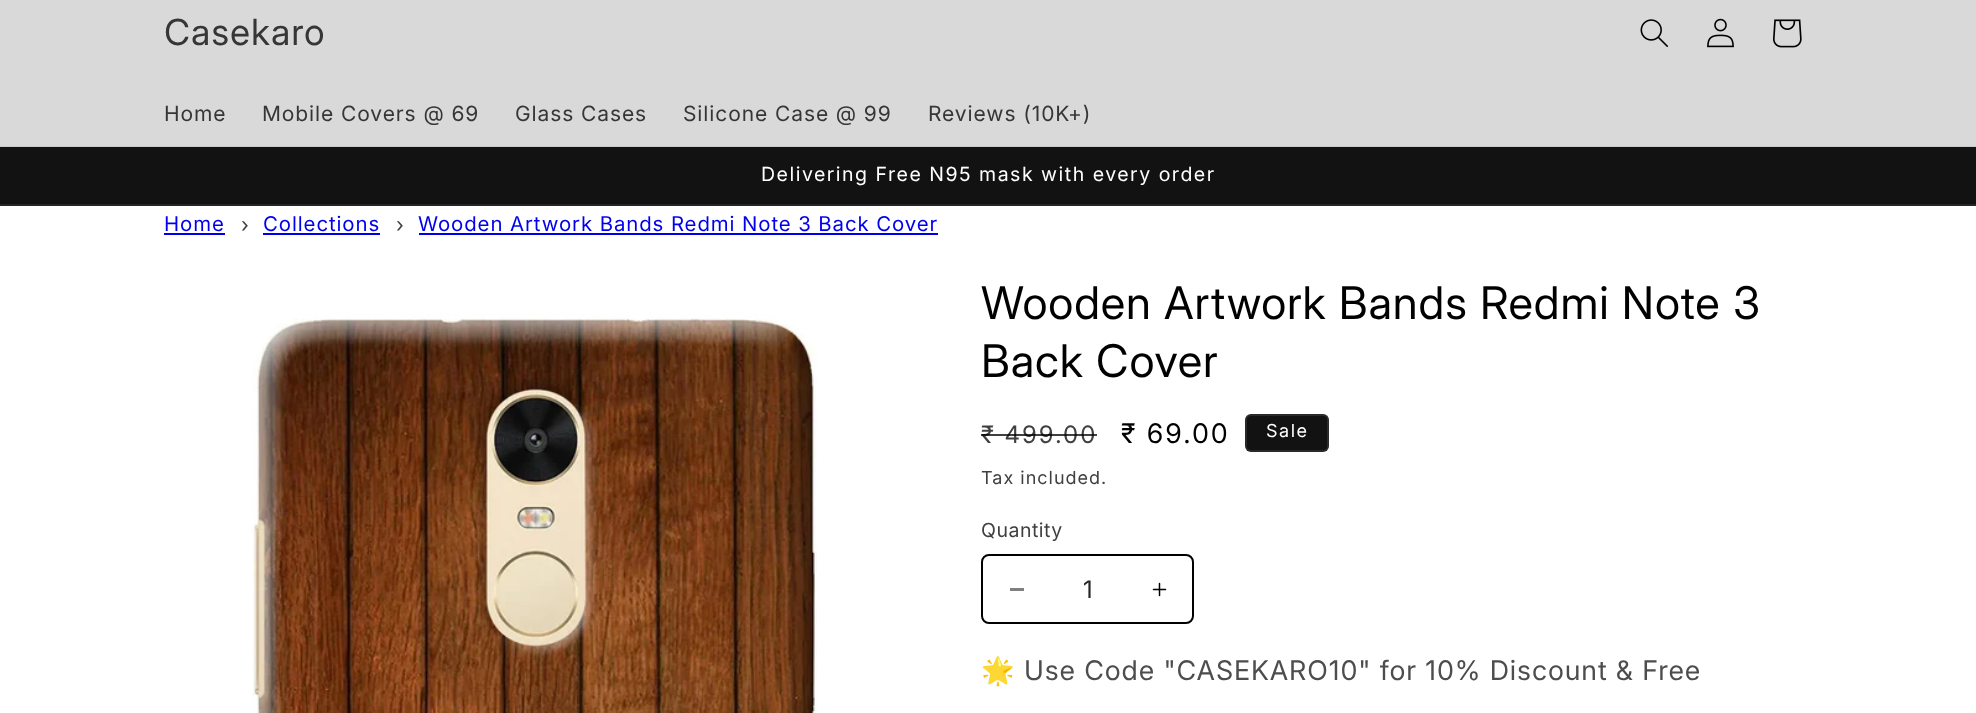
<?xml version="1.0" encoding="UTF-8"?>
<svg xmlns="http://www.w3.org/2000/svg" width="1976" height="713">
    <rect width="100%" height="100%" fill="#FFFFFF"/>
    <rect x="0" y="0" width="1976" height="146" fill="#D9D9D9"/>
    <rect x="0" y="146" width="1976" height="1" fill="#C8C8C8"/>
    <text x="164" y="45" font-family="'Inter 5'" font-size="36" letter-spacing="0.9" fill="#363636">Casekaro</text>
    <image x="1640" y="19" width="28" height="28" href="img_01.png"/>
    <image x="1707" y="18" width="27" height="30" href="img_02.png"/>
    <image x="1773" y="19" width="29" height="29" href="img_03.png"/>
    <text x="164" y="121" font-family="Inter" font-size="21" letter-spacing="0.9" fill="#363636">Home</text>
    <text x="262" y="121" font-family="Inter" font-size="21" letter-spacing="0.9" fill="#363636">Mobile Covers @ 69</text>
    <text x="515" y="121" font-family="Inter" font-size="21" letter-spacing="0.9" fill="#363636">Glass Cases</text>
    <text x="683" y="121" font-family="Inter" font-size="21" letter-spacing="0.9" fill="#363636">Silicone Case @ 99</text>
    <text x="928" y="121" font-family="Inter" font-size="21" letter-spacing="0.9" fill="#363636">Reviews (10K+)</text>
    <rect x="0" y="148" width="1976" height="56" fill="#121212"/>
    <rect x="0" y="147" width="1976" height="1" fill="#111111"/>
    <rect x="0" y="204" width="1976" height="2" fill="#252525"/>
    <text x="761" y="181" font-family="Inter" font-size="19.5" letter-spacing="1.5" fill="#FFFFFF">Delivering Free N95 mask with every order</text>
    <text x="164" y="231" font-family="Inter" font-size="20.4" letter-spacing="0.9" fill="#0000EE">Home</text>
    <rect x="164" y="233" width="61" height="2" fill="#0000EE"/>
    <text x="241" y="232" font-family="Inter" font-size="20.4" letter-spacing="0.9" fill="#404040">›</text>
    <text x="263" y="231" font-family="Inter" font-size="20.4" letter-spacing="0.9" fill="#0000EE">Collections</text>
    <rect x="263" y="233" width="117" height="2" fill="#0000EE"/>
    <text x="396" y="232" font-family="Inter" font-size="20.4" letter-spacing="0.9" fill="#404040">›</text>
    <text x="418" y="231" font-family="Inter" font-size="20.4" letter-spacing="0.9" fill="#0000EE">Wooden Artwork Bands Redmi Note 3 Back Cover</text>
    <rect x="419" y="233" width="519" height="2" fill="#0000EE"/>
    <image x="252" y="314" width="565" height="399" href="img_04.png"/>
    <text font-family="'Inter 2'" font-size="45" letter-spacing="0.9" fill="#000000">
        <tspan x="981" y="319">Wooden Artwork Bands Redmi Note 3</tspan>
        <tspan x="981" y="377">Back Cover</tspan>
    </text>
    <text x="981" y="443" font-family="'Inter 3'" font-size="24" letter-spacing="2" fill="#404040">₹ 499.00</text>
    <rect x="981" y="434" width="116" height="2" fill="#000000" fill-opacity="0.75"/>
    <text x="1121" y="443" font-family="'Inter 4'" font-size="27" letter-spacing="2" fill="#000000">₹ 69.00</text>
    <rect x="1245" y="414" width="84" height="38" rx="6" fill="#121212"/>
    <rect x="1246" y="415" width="82" height="36" rx="5" fill="none" stroke="#FFFFFF" stroke-opacity="0.1" stroke-width="2"/>
    <text x="1266" y="437" font-family="Inter" font-size="18" letter-spacing="1.5" fill="#FFFFFF">Sale</text>
    <text x="981" y="484" font-family="Inter" font-size="18" letter-spacing="1" fill="#404040">Tax included.</text>
    <text x="981" y="537" font-family="Inter" font-size="19.5" letter-spacing="0.5" fill="#404040">Quantity</text>
    <rect x="1010" y="588" width="14" height="3" fill="#808080"/>
    <image x="1152" y="582" width="15" height="15" href="img_05.png"/>
    <rect x="982" y="555" width="211" height="68" rx="7" fill="none" stroke="#000000" stroke-width="2"/>
    <text x="1083" y="598" font-family="'Inter 3'" font-size="24" fill="#262626">1</text>
    <text x="981" y="680" font-family="Noto Color Emoji" font-size="27" letter-spacing="0.9" fill="#4D4D4D">🌟</text>
    <text x="1024" y="680" font-family="'Inter 4'" font-size="27" letter-spacing="0.9" fill="#4D4D4D">Use Code "CASEKARO10" for 10% Discount &amp; Free</text>
</svg>
